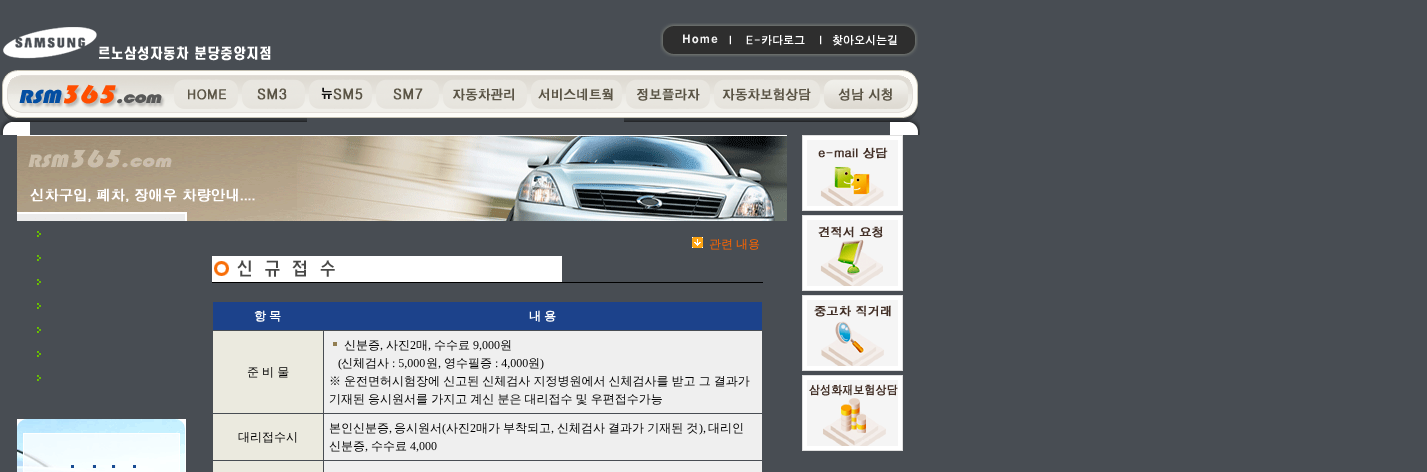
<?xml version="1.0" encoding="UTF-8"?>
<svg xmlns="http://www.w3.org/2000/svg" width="1427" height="472">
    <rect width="100%" height="100%" fill="#484D53"/>
    <image x="3" y="27" width="268" height="34" href="img_01.png"/>
    <image x="660" y="23" width="258" height="34" href="img_02.png"/>
    <image x="2" y="70" width="171" height="48" href="img_03.png"/>
    <image x="173" y="70" width="67" height="48" href="img_04.png"/>
    <image x="240" y="70" width="67" height="48" href="img_05.png"/>
    <image x="307" y="70" width="67" height="48" href="img_06.png"/>
    <image x="374" y="70" width="67" height="48" href="img_07.png"/>
    <image x="441" y="70" width="88" height="48" href="img_08.png"/>
    <image x="529" y="70" width="95" height="48" href="img_09.png"/>
    <image x="624" y="70" width="88" height="48" href="img_10.png"/>
    <image x="712" y="70" width="110" height="48" href="img_11.png"/>
    <image x="822" y="70" width="88" height="48" href="img_12.png"/>
    <image x="910" y="72" width="8" height="46" href="img_13.png"/>
    <image x="3" y="118" width="304" height="4" href="img_14.png"/>
    <image x="624" y="118" width="294" height="4" href="img_15.png"/>
    <image x="0" y="122" width="30" height="13" href="img_16.png"/>
    <image x="890" y="122" width="30" height="13" href="img_17.png"/>
    <image x="17" y="135" width="770" height="86" href="img_18.png"/>
    <image x="37" y="231" width="4" height="6" href="img_19.png"/>
    <image x="37" y="255" width="4" height="6" href="img_19.png"/>
    <image x="37" y="279" width="4" height="6" href="img_19.png"/>
    <image x="37" y="303" width="4" height="6" href="img_19.png"/>
    <image x="37" y="327" width="4" height="6" href="img_19.png"/>
    <image x="37" y="351" width="4" height="6" href="img_19.png"/>
    <image x="37" y="375" width="4" height="6" href="img_19.png"/>
    <image x="17" y="419" width="169" height="53" href="img_20.png"/>
    <image x="692" y="237" width="11" height="11" href="img_21.png"/>
    <text x="709" y="248" word-spacing="-0.5" font-family="WenQuanYi Zen Hei" font-size="12" font-weight="500" fill="#FF6600">관련 내용</text>
    <image x="212" y="256" width="350" height="26" href="img_22.png"/>
    <rect x="212" y="282" width="551" height="1" fill="#000000"/>
    <rect x="213" y="302" width="549" height="28" fill="#1C428B"/>
    <text x="254" y="320" word-spacing="-0.5" font-family="WenQuanYi Zen Hei" font-size="12" font-weight="700" fill="#FFFFFF">항 목</text>
    <text x="529" y="320" word-spacing="-0.5" font-family="WenQuanYi Zen Hei" font-size="12" font-weight="700" fill="#FFFFFF">내 용</text>
    <rect x="213" y="331" width="110" height="82" fill="#EBEADF"/>
    <text x="247" y="376" word-spacing="-0.5" font-family="WenQuanYi Zen Hei" font-size="12" font-weight="500" fill="#000000">준 비 물</text>
    <rect x="324" y="331" width="438" height="82" fill="#EFEFEF"/>
    <rect x="333" y="342" width="4" height="4" fill="#927E52"/>
    <text x="344" y="349" font-family="WenQuanYi Zen Hei" font-size="12" font-weight="500" fill="#000000">신분증</text>
    <text x="386" y="349" font-family="WenQuanYi Zen Hei" font-size="12" font-weight="500" fill="#000000">사진</text>
    <text x="410" y="349" font-family="Liberation Serif" font-size="12" fill="#000000">2</text>
    <text x="416" y="349" font-family="WenQuanYi Zen Hei" font-size="12" font-weight="500" fill="#000000">매</text>
    <text x="434" y="349" font-family="WenQuanYi Zen Hei" font-size="12" font-weight="500" fill="#000000">수수료</text>
    <text x="473" y="349" font-family="Liberation Serif" font-size="12" fill="#000000">9,000</text>
    <text x="500" y="349" font-family="WenQuanYi Zen Hei" font-size="12" font-weight="500" fill="#000000">원</text>
    <text x="380" y="349" font-family="Liberation Serif" font-size="12" fill="#000000">,</text>
    <text x="428" y="349" font-family="Liberation Serif" font-size="12" fill="#000000">,</text>
    <text x="338" y="367" font-family="Liberation Serif" font-size="12" fill="#000000">(</text>
    <text x="341" y="367" font-family="WenQuanYi Zen Hei" font-size="12" font-weight="500" fill="#000000">신체검사</text>
    <text x="392" y="367" font-family="Liberation Serif" font-size="12" fill="#000000">: 5,000</text>
    <text x="426" y="367" font-family="WenQuanYi Zen Hei" font-size="12" font-weight="500" fill="#000000">원</text>
    <text x="438" y="367" font-family="Liberation Serif" font-size="12" fill="#000000">,</text>
    <text x="444" y="367" font-family="WenQuanYi Zen Hei" font-size="12" font-weight="500" fill="#000000">영수필증</text>
    <text x="495" y="367" font-family="Liberation Serif" font-size="12" fill="#000000">: 4,000</text>
    <text x="528" y="367" font-family="WenQuanYi Zen Hei" font-size="12" font-weight="500" fill="#000000">원</text>
    <text x="540" y="367" font-family="Liberation Serif" font-size="12" fill="#000000">)</text>
    <text font-family="WenQuanYi Zen Hei" font-size="12" font-weight="500" fill="#000000">
        <tspan x="329" y="385" word-spacing="-0.5">※ 운전면허시험장에 신고된 신체검사 지정병원에서 신체검사를 받고 그 결과가</tspan>
        <tspan x="329" y="403" word-spacing="-0.5">기재된 응시원서를 가지고 계신 분은 대리접수 및 우편접수가능</tspan>
    </text>
    <rect x="213" y="414" width="110" height="46" fill="#EBEADF"/>
    <text x="238" y="441" font-family="WenQuanYi Zen Hei" font-size="12" font-weight="500" fill="#000000">대리접수시</text>
    <rect x="324" y="414" width="438" height="46" fill="#EFEFEF"/>
    <text x="329" y="432" font-family="WenQuanYi Zen Hei" font-size="12" font-weight="500" fill="#000000">본인신분증</text>
    <text x="389" y="432" font-family="Liberation Serif" font-size="12" fill="#000000">,</text>
    <text x="394" y="432" font-family="WenQuanYi Zen Hei" font-size="12" font-weight="500" fill="#000000">응시원서</text>
    <text x="442" y="432" font-family="Liberation Serif" font-size="12" fill="#000000">(</text>
    <text x="446" y="432" font-family="WenQuanYi Zen Hei" font-size="12" font-weight="500" fill="#000000">사진</text>
    <text x="470" y="432" font-family="Liberation Serif" font-size="12" fill="#000000">2</text>
    <text x="476" y="432" word-spacing="-0.5" font-family="WenQuanYi Zen Hei" font-size="12" font-weight="500" fill="#000000">매가 부착되고</text>
    <text x="551" y="432" font-family="Liberation Serif" font-size="12" fill="#000000">,</text>
    <text x="557" y="432" word-spacing="-0.5" font-family="WenQuanYi Zen Hei" font-size="12" font-weight="500" fill="#000000">신체검사 결과가 기재된 것</text>
    <text x="699" y="432" font-family="Liberation Serif" font-size="12" fill="#000000">),</text>
    <text x="708" y="432" font-family="WenQuanYi Zen Hei" font-size="12" font-weight="500" fill="#000000">대리인</text>
    <text x="329" y="450" font-family="WenQuanYi Zen Hei" font-size="12" font-weight="500" fill="#000000">신분증</text>
    <text x="365" y="450" font-family="Liberation Serif" font-size="12" fill="#000000">,</text>
    <text x="371" y="450" font-family="WenQuanYi Zen Hei" font-size="12" font-weight="500" fill="#000000">수수료</text>
    <text x="410" y="450" font-family="Liberation Serif" font-size="12" fill="#000000">4,000</text>
    <rect x="213" y="461" width="110" height="11" fill="#EBEADF"/>
    <rect x="324" y="461" width="438" height="11" fill="#EFEFEF"/>
    <image x="802" y="135" width="101" height="76" href="img_23.png"/>
    <image x="802" y="215" width="101" height="76" href="img_24.png"/>
    <image x="802" y="295" width="101" height="76" href="img_25.png"/>
    <image x="802" y="375" width="101" height="76" href="img_26.png"/>
</svg>
